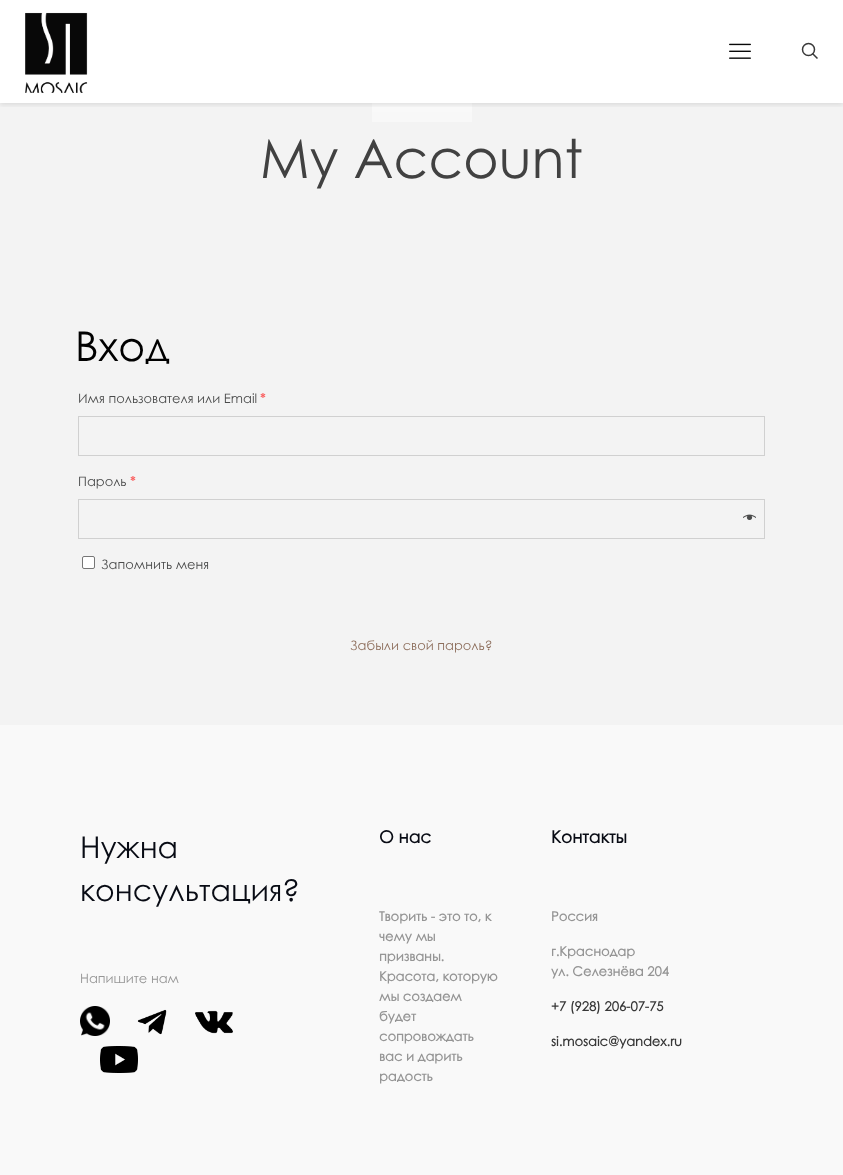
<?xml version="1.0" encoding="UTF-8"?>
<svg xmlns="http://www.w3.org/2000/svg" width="843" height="1175">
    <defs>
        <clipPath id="clip1"><rect x="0" y="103" width="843" height="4"/></clipPath>
        <filter id="blur1" x="-50%" y="-200%" width="200%" height="500%"><feGaussianBlur stdDeviation="2.5"/></filter>
    </defs>
    <rect width="100%" height="100%" fill="#F3F3F3"/>
    <image x="372" y="60" width="100" height="62" href="img_03.png"/>
    <g clip-path="url(#clip1)">
        <rect x="0" y="2" width="843" height="103" fill="#000000" fill-opacity="0.1" filter="url(#blur1)"/>
    </g>
    <rect x="0" y="0" width="843" height="103" fill="#FFFFFF" fill-opacity="0.97"/>
    <image x="25" y="12" width="63" height="81" href="img_01.png"/>
    <image x="729" y="43" width="22" height="16" href="img_02.png"/>
    <circle cx="808.5" cy="49.5" r="6" fill="none" stroke="#393939" stroke-width="1.5"/>
    <path d="M 812.5 53.5 L 817.5 58.5" fill="none" stroke="#393939" stroke-width="1.5"/>
    <text x="260" y="178" font-family="Century Gothic" font-size="54" fill="#414141">My Account</text>
    <text x="75" y="361" font-family="Century Gothic" font-size="41" fill="#000000">Вход</text>
    <text x="78" y="403" font-family="Century Gothic" font-size="13" fill="#4A4B4B">Имя пользователя или Email</text>
    <text x="260" y="403" font-family="Century Gothic" font-size="13" font-weight="700" fill="#FA6161">*</text>
    <rect x="78.5" y="416.5" width="686" height="39" fill="none" stroke="#D0D0D0"/>
    <text x="78" y="486" font-family="Century Gothic" font-size="13" fill="#4A4B4B">Пароль</text>
    <text x="130" y="486" font-family="Century Gothic" font-size="13" font-weight="700" fill="#FA6161">*</text>
    <rect x="78.5" y="499.5" width="686" height="39" fill="none" stroke="#D0D0D0"/>
    <image x="743" y="514" width="13" height="6" href="img_04.png"/>
    <rect x="82.5" y="556.5" width="12" height="12" rx="1.5" fill="#FFFFFF" stroke="#767676"/>
    <text x="101" y="569" font-family="Century Gothic" font-size="13" fill="#4A4B4B">Запомнить меня</text>
    <text x="350" y="650" font-family="Century Gothic" font-size="13" fill="#8D6E5C">Забыли свой пароль?</text>
    <rect x="0" y="725" width="843" height="450" fill="#F9F9F9"/>
    <text font-family="Century Gothic" font-size="30" fill="#080B14">
        <tspan x="80" y="858">Нужна</tspan>
        <tspan x="80" y="901">консультация?</tspan>
    </text>
    <text x="80" y="983" font-family="Century Gothic" font-size="13" fill="#959595">Напишите нам</text>
    <image x="80" y="1006" width="30" height="30" href="img_05.png"/>
    <image x="137" y="1009" width="30" height="26" href="img_06.png"/>
    <image x="195" y="1010" width="38" height="24" href="img_07.png"/>
    <image x="100" y="1046" width="38" height="27" href="img_08.png"/>
    <text x="379" y="843" font-family="Century Gothic" font-size="17" font-weight="700" fill="#080B14">О нас</text>
    <text font-family="Century Gothic" font-size="13" font-weight="700" fill="#959595">
        <tspan x="379" y="921">Творить - это то, к</tspan>
        <tspan x="379" y="941">чему мы</tspan>
        <tspan x="379" y="961">призваны.</tspan>
        <tspan x="379" y="981">Красота, которую</tspan>
        <tspan x="379" y="1001">мы создаем</tspan>
        <tspan x="379" y="1021">будет</tspan>
        <tspan x="379" y="1041">сопровождать</tspan>
        <tspan x="379" y="1061">вас и дарить</tspan>
        <tspan x="379" y="1081">радость</tspan>
    </text>
    <text x="551" y="843" font-family="Century Gothic" font-size="17" font-weight="700" fill="#080B14">Контакты</text>
    <text x="551" y="921" font-family="Century Gothic" font-size="13" font-weight="700" fill="#959595">Россия</text>
    <text font-family="Century Gothic" font-size="13" font-weight="700" fill="#959595">
        <tspan x="551" y="956">г.Краснодар</tspan>
        <tspan x="551" y="976">ул. Селезнёва 204</tspan>
    </text>
    <text x="551" y="1011" font-family="Century Gothic" font-size="13" font-weight="700" fill="#373737">+7 (928) 206-07-75</text>
    <text x="551" y="1046" font-family="Century Gothic" font-size="13" font-weight="700" fill="#373737">si.mosaic@yandex.ru</text>
</svg>
